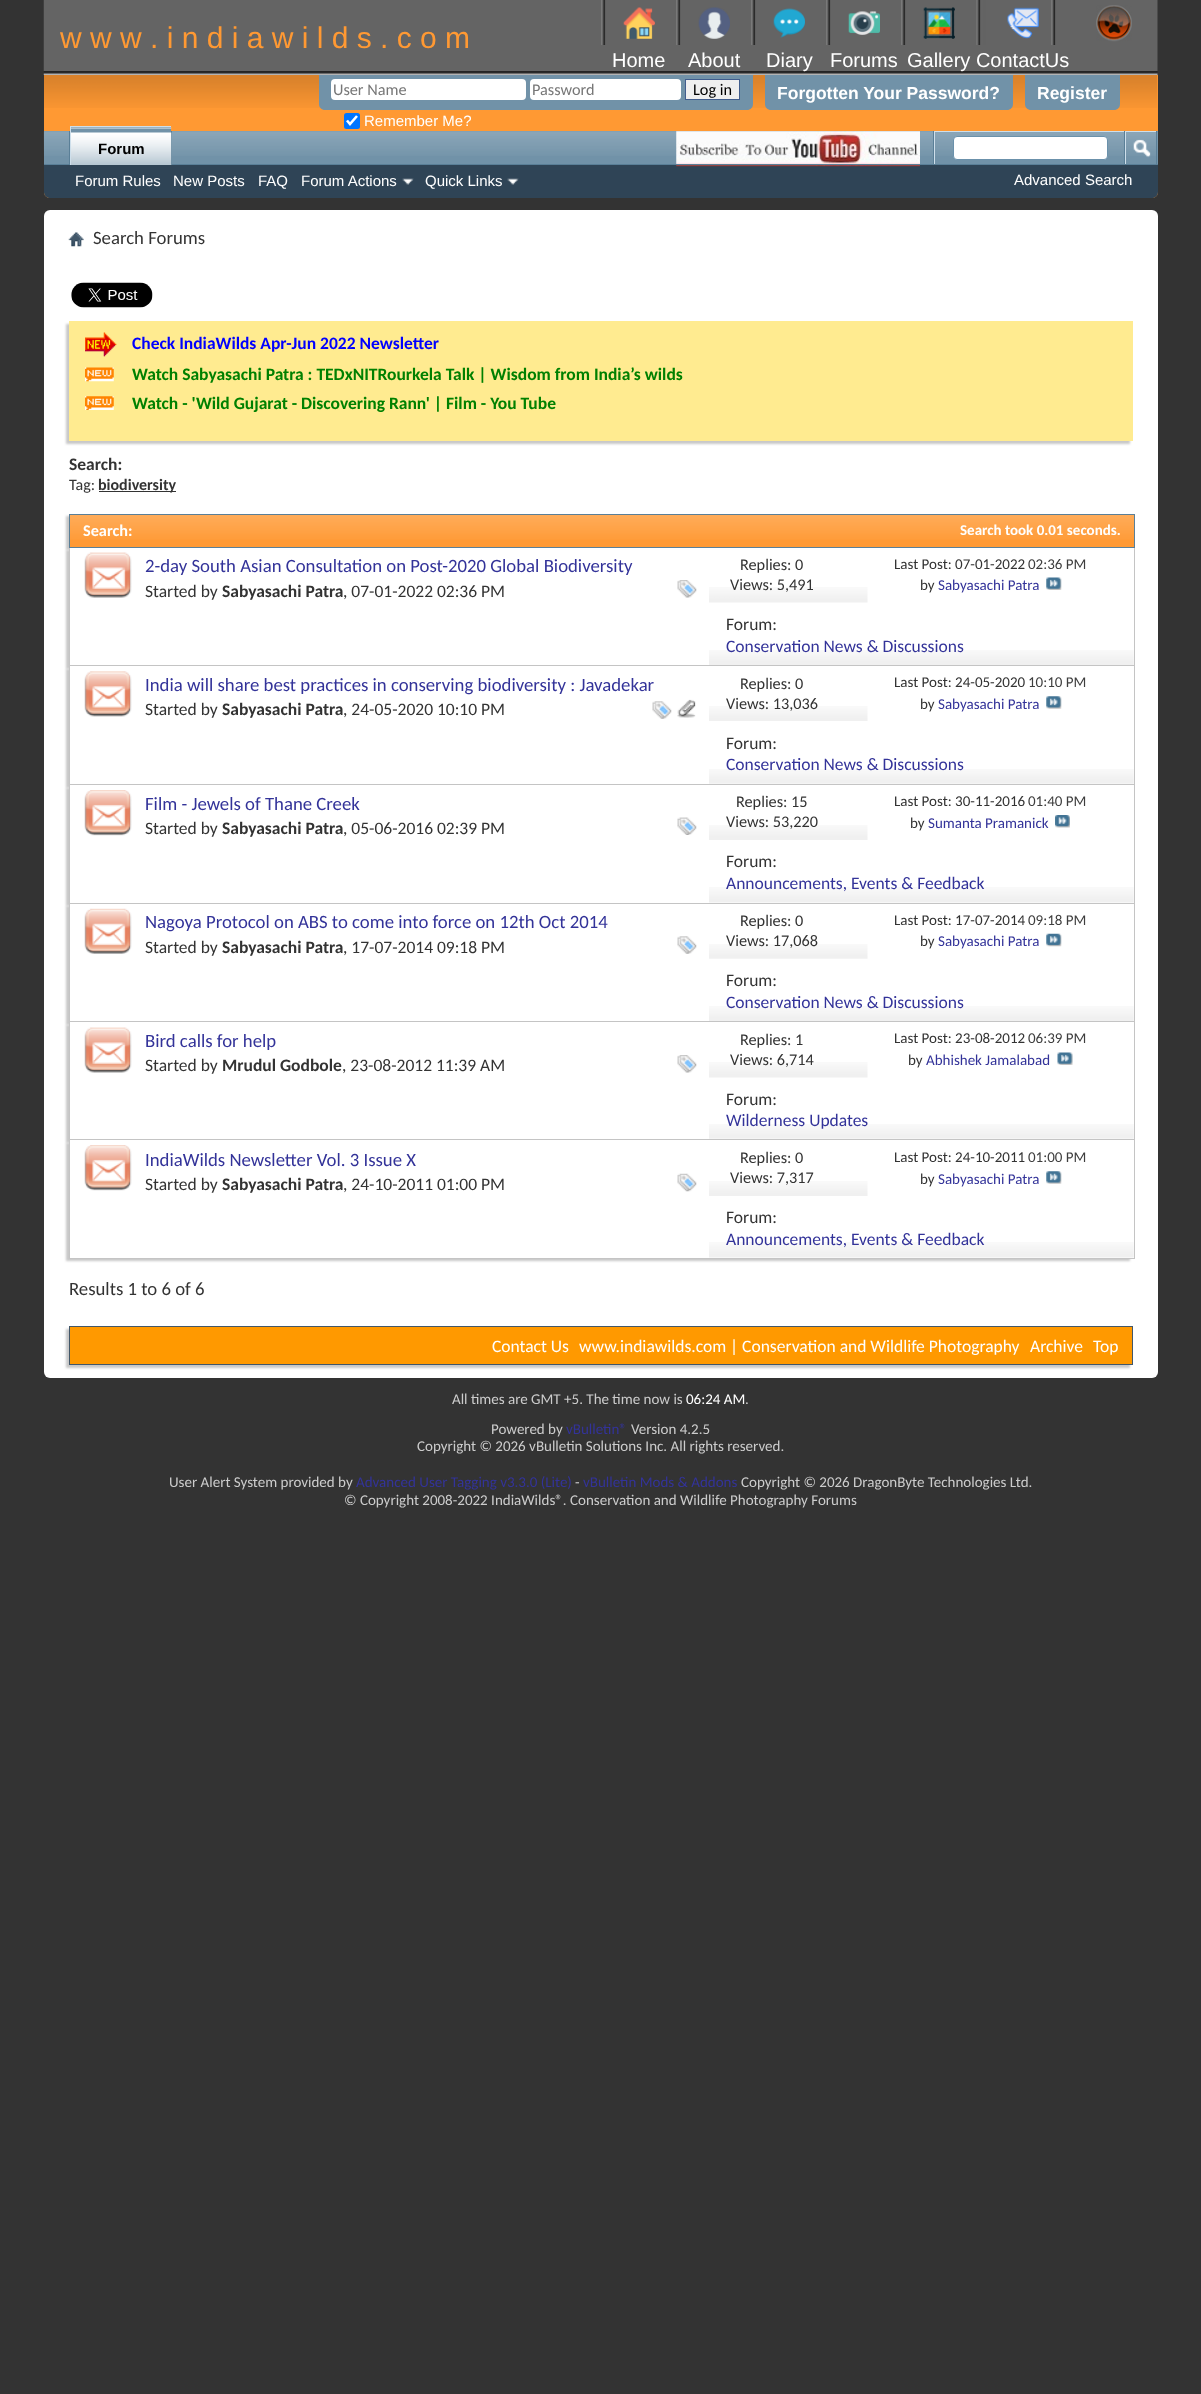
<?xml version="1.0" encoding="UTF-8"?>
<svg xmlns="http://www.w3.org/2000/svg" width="1201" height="2394">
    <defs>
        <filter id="blur1" x="-50%" y="-200%" width="200%" height="500%"><feGaussianBlur stdDeviation="1"/></filter>
    </defs>
    <rect width="100%" height="100%" fill="#333333"/>
    <image x="43" y="0" width="1115" height="75" href="img_01.png"/>
    <text x="60" y="48" font-family="Liberation Sans" font-size="30" fill="#FF9933">w w w . i n d i a w i l d s . c o m</text>
    <image x="601" y="0" width="5" height="45" href="img_02.png"/>
    <image x="623" y="7" width="32" height="32" href="img_03.png"/>
    <image x="676" y="0" width="5" height="45" href="img_02.png"/>
    <image x="698" y="7" width="32" height="32" href="img_04.png"/>
    <image x="751" y="0" width="5" height="45" href="img_02.png"/>
    <image x="773" y="8" width="32" height="30" href="img_05.png"/>
    <image x="826" y="0" width="5" height="45" href="img_02.png"/>
    <image x="848" y="11" width="32" height="24" href="img_06.png"/>
    <image x="901" y="0" width="5" height="45" href="img_02.png"/>
    <image x="923" y="7" width="32" height="32" href="img_07.png"/>
    <image x="976" y="0" width="80" height="45" href="img_08.png"/>
    <image x="1007" y="7" width="32" height="32" href="img_09.png"/>
    <image x="1096" y="5" width="36" height="37" href="img_10.png"/>
    <text x="612" y="67" font-family="Liberation Sans" font-size="20" fill="#FFFFFF">Home</text>
    <text x="688" y="67" font-family="Liberation Sans" font-size="20" fill="#FFFFFF">About</text>
    <text x="766" y="67" font-family="Liberation Sans" font-size="20" fill="#FFFFFF">Diary</text>
    <text x="830" y="67" font-family="Liberation Sans" font-size="20" fill="#FFFFFF">Forums</text>
    <text x="907" y="67" font-family="Liberation Sans" font-size="20" fill="#FFFFFF">Gallery ContactUs</text>
    <path d="M 44 75 H 1158 V 192 C 1158 195.5 1155.5 198 1152 198 H 50 C 46.5 198 44 195.5 44 192 Z" fill="#FF9933"/>
    <image x="44" y="75" width="1114" height="33" href="img_11.png"/>
    <path d="M 319 75 H 753 V 104 C 753 107.5 750.5 110 747 110 H 325 C 321.5 110 319 107.5 319 104 Z" fill="#7192A8"/>
    <rect x="331" y="79" width="195" height="21" rx="4" fill="#FFFFFF"/>
    <text x="333" y="95" font-family="Carlito" font-size="16.25" fill="#777777">User Name</text>
    <rect x="530" y="79" width="151" height="21" rx="4" fill="#FFFFFF"/>
    <text x="532" y="95" font-family="Carlito" font-size="16.25" fill="#777777">Password</text>
    <rect x="685.5" y="79.5" width="54" height="20" fill="#EFEFEF" stroke="#415D8D"/>
    <text x="693" y="95" font-family="Carlito" font-size="16.25" fill="#000000">Log in</text>
    <rect x="344" y="113" width="16" height="16" rx="2.5" fill="#0075FF"/>
    <path d="M 347 120.5 L 350 124 L 357 116" fill="none" stroke="#FFFFFF" stroke-width="2.6"/>
    <text x="364" y="126" font-family="Liberation Sans" font-size="15" fill="#FFFFFF">Remember Me?</text>
    <path d="M 765 75 H 1013 V 104 C 1013 107.5 1010.5 110 1007 110 H 771 C 767.5 110 765 107.5 765 104 Z" fill="#7192A8"/>
    <text x="777" y="99" font-family="Liberation Sans" font-size="17.5" font-weight="700" fill="#FFFFFF">Forgotten Your Password?</text>
    <path d="M 1025 75 H 1120 V 104 C 1120 107.5 1117.5 110 1114 110 H 1031 C 1027.5 110 1025 107.5 1025 104 Z" fill="#7192A8"/>
    <text x="1037" y="99" font-family="Liberation Sans" font-size="17.5" font-weight="700" fill="#FFFFFF">Register</text>
    <path d="M 44 131 H 1158 V 192 C 1158 195.5 1155.5 198 1152 198 H 50 C 46.5 198 44 195.5 44 192 Z" fill="#2F4456"/>
    <rect x="44" y="131" width="1114" height="33" fill="#7192A8"/>
    <image x="43" y="131" width="1115" height="25" href="img_12.png"/>
    <rect x="171" y="131" width="1" height="33" fill="#5A7F97"/>
    <rect x="69" y="131" width="1" height="33" fill="#5A7F97"/>
    <image x="676" y="131" width="244" height="36" href="img_14.png"/>
    <rect x="44" y="164" width="1114" height="1" fill="#5A7F97"/>
    <rect x="71" y="127" width="100" height="38" fill="#7192A8"/>
    <image x="71" y="127" width="101" height="38" href="img_13.png"/>
    <rect x="70" y="126" width="101" height="1" fill="#CEDFEB"/>
    <rect x="70" y="126" width="1" height="39" fill="#CEDFEB"/>
    <text x="98" y="154" font-family="Liberation Sans" font-size="15" font-weight="700" fill="#000000">Forum</text>
    <text x="75" y="186" font-family="Liberation Sans" font-size="15" fill="#FFFFFF">Forum Rules</text>
    <text x="173" y="186" font-family="Liberation Sans" font-size="15" fill="#FFFFFF">New Posts</text>
    <text x="258" y="186" font-family="Liberation Sans" font-size="15" fill="#FFFFFF">FAQ</text>
    <text x="301" y="186" font-family="Liberation Sans" font-size="15" fill="#FFFFFF">Forum Actions</text>
    <image x="402" y="178" width="12" height="7" href="img_15.png"/>
    <text x="425" y="186" font-family="Liberation Sans" font-size="15" fill="#FFFFFF">Quick Links</text>
    <image x="507" y="178" width="12" height="7" href="img_16.png"/>
    <rect x="933" y="131" width="1" height="33" fill="#5A7F97"/>
    <rect x="934" y="131" width="190" height="1" fill="#CEDFEB"/>
    <rect x="934" y="131" width="1" height="33" fill="#CEDFEB"/>
    <rect x="953.5" y="136.5" width="154" height="23" rx="3.5" fill="#FFFFFF" stroke="#6B91AB"/>
    <rect x="1156" y="131" width="1" height="33" fill="#5A7F97"/>
    <rect x="1124" y="131" width="1" height="33" fill="#5A7F97"/>
    <rect x="1125" y="131" width="31" height="1" fill="#CEDFEB"/>
    <rect x="1125" y="131" width="1" height="33" fill="#CEDFEB"/>
    <image x="1133" y="139" width="18" height="19" href="img_17.png"/>
    <text x="1014" y="185" font-family="Liberation Sans" font-size="15" fill="#FFFFFF">Advanced Search</text>
    <rect x="44" y="210" width="1114" height="1168" rx="6" fill="#FFFFFF"/>
    <image x="68" y="232" width="16" height="15" href="img_18.png"/>
    <text x="93" y="244" font-family="Carlito" font-size="18.75" fill="#333333">Search Forums</text>
    <image x="71" y="282" width="82" height="26" href="img_19.png"/>
    <rect x="66" y="324" width="1064" height="120" fill="#C8C8C8" filter="url(#blur1)"/>
    <rect x="69" y="321" width="1064" height="120" fill="#FFEB90"/>
    <image x="85" y="332" width="32" height="25" href="img_20.png"/>
    <text x="132" y="349" font-family="Carlito" font-size="17.5" font-weight="700" fill="#0000FF">Check IndiaWilds Apr-Jun 2022 Newsletter</text>
    <image x="85" y="367" width="29" height="15" href="img_21.png"/>
    <text x="132" y="380" font-family="Carlito" font-size="17.5" font-weight="700" fill="#008000">Watch Sabyasachi Patra : TEDxNITRourkela Talk | Wisdom from India’s wilds</text>
    <image x="85" y="396" width="29" height="14" href="img_22.png"/>
    <text x="132" y="409" font-family="Carlito" font-size="17.5" font-weight="700" fill="#008000">Watch - 'Wild Gujarat - Discovering Rann' | Film - You Tube</text>
    <text x="69" y="470" font-family="Carlito" font-size="17.5" font-weight="700" fill="#333333">Search:</text>
    <text x="69" y="490" font-family="Carlito" font-size="16" fill="#333333">Tag:</text>
    <rect x="99" y="491" width="77" height="1" fill="#333333"/>
    <text x="98" y="490" font-family="Carlito" font-size="16" font-weight="700" fill="#333333">biodiversity</text>
    <rect x="66" y="516" width="1067" height="34" fill="#C8C8C8" filter="url(#blur1)"/>
    <rect x="70" y="515" width="1064" height="32" fill="#FF9933"/>
    <image x="70" y="515" width="1064" height="25" href="img_23.png"/>
    <rect x="69.5" y="514.5" width="1065" height="33" fill="none" stroke="#5A7F97"/>
    <text x="83" y="536" font-family="Carlito" font-size="16.25" font-weight="700" fill="#FFFFFF">Search:</text>
    <text x="960" y="535" font-family="Carlito" font-size="15" font-weight="700" fill="#FFFFFF">Search took 0.01 seconds.</text>
    <rect x="66" y="550" width="1064" height="119" fill="#C8C8C8" filter="url(#blur1)"/>
    <rect x="70" y="548" width="1064" height="117" fill="#FFFFFF"/>
    <rect x="1134" y="548" width="1" height="711" fill="#C4C4C4"/>
    <rect x="69" y="665" width="1066" height="1" fill="#C4C4C4"/>
    <rect x="69" y="548" width="1" height="118" fill="#C4C4C4"/>
    <image x="84" y="552" width="48" height="46" href="img_24.png"/>
    <text x="145" y="572" font-family="Carlito" font-size="18.75" fill="#333399">2-day South Asian Consultation on Post-2020 Global Biodiversity</text>
    <text x="145" y="597" font-family="Carlito" font-size="17.5" fill="#333333">Started by</text>
    <text x="222" y="597" font-family="Carlito" font-size="17.5" font-weight="700" fill="#333333">Sabyasachi Patra</text>
    <text x="343" y="597" font-family="Carlito" font-size="17.5" fill="#333333">, 07-01-2022 02:36 PM</text>
    <image x="677" y="580" width="20" height="18" href="img_25.png"/>
    <image x="709" y="587" width="159" height="16" href="img_26.png"/>
    <text x="740" y="570" font-family="Carlito" font-size="16.25" fill="#333333">Replies: 0</text>
    <text x="730" y="590" font-family="Carlito" font-size="16.25" fill="#333333">Views: 5,491</text>
    <text x="894" y="569" font-family="Carlito" font-size="15" fill="#333333">Last Post: 07-01-2022</text>
    <text x="1028" y="569" font-family="Carlito" font-size="15" fill="#3E3E3E">02:36 PM</text>
    <text x="920" y="590" font-family="Carlito" font-size="15" fill="#333333">by</text>
    <text x="938" y="590" font-family="Carlito" font-size="15" fill="#333399">Sabyasachi Patra</text>
    <image x="1046" y="577" width="16" height="13" href="img_27.png"/>
    <image x="709" y="650" width="425" height="15" href="img_28.png"/>
    <text x="726" y="630" font-family="Carlito" font-size="17.5" fill="#333333">Forum:</text>
    <text x="726" y="652" font-family="Carlito" font-size="17.5" fill="#333399">Conservation News &amp; Discussions</text>
    <rect x="66" y="669" width="1064" height="119" fill="#C8C8C8" filter="url(#blur1)"/>
    <rect x="70" y="666" width="1062" height="118" fill="#FFFFFF"/>
    <rect x="69" y="784" width="1066" height="1" fill="#C4C4C4"/>
    <rect x="69" y="666" width="1" height="119" fill="#C4C4C4"/>
    <image x="84" y="671" width="48" height="46" href="img_29.png"/>
    <text x="145" y="691" font-family="Carlito" font-size="18.75" fill="#333399">India will share best practices in conserving biodiversity : Javadekar</text>
    <text x="145" y="715" font-family="Carlito" font-size="17.5" fill="#333333">Started by</text>
    <text x="222" y="715" font-family="Carlito" font-size="17.5" font-weight="700" fill="#333333">Sabyasachi Patra</text>
    <text x="343" y="715" font-family="Carlito" font-size="17.5" fill="#333333">, 24-05-2020 10:10 PM</text>
    <image x="652" y="701" width="20" height="18" href="img_30.png"/>
    <image x="677" y="699" width="19" height="19" href="img_31.png"/>
    <image x="709" y="706" width="159" height="15" href="img_32.png"/>
    <text x="740" y="689" font-family="Carlito" font-size="16.25" fill="#333333">Replies: 0</text>
    <text x="726" y="709" font-family="Carlito" font-size="16.25" fill="#333333">Views: 13,036</text>
    <text x="894" y="687" font-family="Carlito" font-size="15" fill="#333333">Last Post: 24-05-2020</text>
    <text x="1028" y="687" font-family="Carlito" font-size="15" fill="#3E3E3E">10:10 PM</text>
    <text x="920" y="709" font-family="Carlito" font-size="15" fill="#333333">by</text>
    <text x="938" y="709" font-family="Carlito" font-size="15" fill="#333399">Sabyasachi Patra</text>
    <image x="1046" y="696" width="16" height="13" href="img_33.png"/>
    <image x="709" y="769" width="425" height="15" href="img_34.png"/>
    <text x="726" y="749" font-family="Carlito" font-size="17.5" fill="#333333">Forum:</text>
    <text x="726" y="770" font-family="Carlito" font-size="17.5" fill="#333399">Conservation News &amp; Discussions</text>
    <rect x="66" y="788" width="1064" height="118" fill="#C8C8C8" filter="url(#blur1)"/>
    <rect x="70" y="785" width="1062" height="118" fill="#FFFFFF"/>
    <rect x="69" y="903" width="1066" height="1" fill="#C4C4C4"/>
    <rect x="69" y="785" width="1" height="119" fill="#C4C4C4"/>
    <image x="84" y="790" width="48" height="46" href="img_35.png"/>
    <text x="145" y="810" font-family="Carlito" font-size="18.75" fill="#333399">Film - Jewels of Thane Creek</text>
    <text x="145" y="834" font-family="Carlito" font-size="17.5" fill="#333333">Started by</text>
    <text x="222" y="834" font-family="Carlito" font-size="17.5" font-weight="700" fill="#333333">Sabyasachi Patra</text>
    <text x="343" y="834" font-family="Carlito" font-size="17.5" fill="#333333">, 05-06-2016 02:39 PM</text>
    <image x="677" y="817" width="20" height="18" href="img_36.png"/>
    <image x="709" y="825" width="159" height="15" href="img_37.png"/>
    <text x="736" y="807" font-family="Carlito" font-size="16.25" fill="#333333">Replies: 15</text>
    <text x="726" y="827" font-family="Carlito" font-size="16.25" fill="#333333">Views: 53,220</text>
    <text x="894" y="806" font-family="Carlito" font-size="15" fill="#333333">Last Post: 30-11-2016</text>
    <text x="1028" y="806" font-family="Carlito" font-size="15" fill="#3E3E3E">01:40 PM</text>
    <text x="910" y="828" font-family="Carlito" font-size="15" fill="#333333">by</text>
    <text x="928" y="828" font-family="Carlito" font-size="15" fill="#333399">Sumanta Pramanick</text>
    <image x="1055" y="815" width="15" height="13" href="img_38.png"/>
    <image x="709" y="887" width="425" height="16" href="img_39.png"/>
    <text x="726" y="867" font-family="Carlito" font-size="17.5" fill="#333333">Forum:</text>
    <text x="726" y="889" font-family="Carlito" font-size="17.5" fill="#333399">Announcements, Events &amp; Feedback</text>
    <rect x="66" y="906" width="1064" height="119" fill="#C8C8C8" filter="url(#blur1)"/>
    <rect x="70" y="904" width="1062" height="119" fill="#FFFFFF"/>
    <rect x="69" y="1021" width="1066" height="1" fill="#C4C4C4"/>
    <rect x="69" y="904" width="1" height="119" fill="#C4C4C4"/>
    <image x="84" y="908" width="48" height="46" href="img_40.png"/>
    <text x="145" y="928" font-family="Carlito" font-size="18.75" fill="#333399">Nagoya Protocol on ABS to come into force on 12th Oct 2014</text>
    <text x="145" y="953" font-family="Carlito" font-size="17.5" fill="#333333">Started by</text>
    <text x="222" y="953" font-family="Carlito" font-size="17.5" font-weight="700" fill="#333333">Sabyasachi Patra</text>
    <text x="343" y="953" font-family="Carlito" font-size="17.5" fill="#333333">, 17-07-2014 09:18 PM</text>
    <image x="677" y="936" width="20" height="18" href="img_30.png"/>
    <image x="709" y="944" width="159" height="15" href="img_41.png"/>
    <text x="740" y="926" font-family="Carlito" font-size="16.25" fill="#333333">Replies: 0</text>
    <text x="726" y="946" font-family="Carlito" font-size="16.25" fill="#333333">Views: 17,068</text>
    <text x="894" y="925" font-family="Carlito" font-size="15" fill="#333333">Last Post: 17-07-2014</text>
    <text x="1028" y="925" font-family="Carlito" font-size="15" fill="#3E3E3E">09:18 PM</text>
    <text x="920" y="946" font-family="Carlito" font-size="15" fill="#333333">by</text>
    <text x="938" y="946" font-family="Carlito" font-size="15" fill="#333399">Sabyasachi Patra</text>
    <image x="1046" y="933" width="16" height="14" href="img_42.png"/>
    <image x="709" y="1006" width="425" height="15" href="img_43.png"/>
    <text x="726" y="986" font-family="Carlito" font-size="17.5" fill="#333333">Forum:</text>
    <text x="726" y="1008" font-family="Carlito" font-size="17.5" fill="#333399">Conservation News &amp; Discussions</text>
    <rect x="66" y="1025" width="1064" height="118" fill="#C8C8C8" filter="url(#blur1)"/>
    <rect x="70" y="1023" width="1062" height="116" fill="#FFFFFF"/>
    <rect x="69" y="1139" width="1066" height="1" fill="#C4C4C4"/>
    <rect x="69" y="1023" width="1" height="117" fill="#C4C4C4"/>
    <image x="84" y="1027" width="48" height="46" href="img_44.png"/>
    <text x="145" y="1047" font-family="Carlito" font-size="18.75" fill="#333399">Bird calls for help</text>
    <text x="145" y="1071" font-family="Carlito" font-size="17.5" fill="#333333">Started by</text>
    <text x="222" y="1071" font-family="Carlito" font-size="17.5" font-weight="700" fill="#333333">Mrudul Godbole</text>
    <text x="342" y="1071" font-family="Carlito" font-size="17.5" fill="#333333">, 23-08-2012 11:39 AM</text>
    <image x="677" y="1055" width="20" height="18" href="img_45.png"/>
    <image x="709" y="1062" width="159" height="16" href="img_46.png"/>
    <text x="740" y="1045" font-family="Carlito" font-size="16.25" fill="#333333">Replies: 1</text>
    <text x="730" y="1065" font-family="Carlito" font-size="16.25" fill="#333333">Views: 6,714</text>
    <text x="894" y="1043" font-family="Carlito" font-size="15" fill="#333333">Last Post: 23-08-2012</text>
    <text x="1028" y="1043" font-family="Carlito" font-size="15" fill="#3E3E3E">06:39 PM</text>
    <text x="908" y="1065" font-family="Carlito" font-size="15" fill="#333333">by</text>
    <text x="926" y="1065" font-family="Carlito" font-size="15" fill="#333399">Abhishek Jamalabad</text>
    <image x="1057" y="1052" width="16" height="13" href="img_47.png"/>
    <image x="709" y="1124" width="425" height="15" href="img_48.png"/>
    <text x="726" y="1105" font-family="Carlito" font-size="17.5" fill="#333333">Forum:</text>
    <text x="726" y="1126" font-family="Carlito" font-size="17.5" fill="#333399">Wilderness Updates</text>
    <rect x="66" y="1143" width="1064" height="118" fill="#C8C8C8" filter="url(#blur1)"/>
    <rect x="70" y="1140" width="1062" height="118" fill="#FFFFFF"/>
    <rect x="69" y="1258" width="1066" height="1" fill="#C4C4C4"/>
    <rect x="69" y="1140" width="1" height="119" fill="#C4C4C4"/>
    <image x="84" y="1145" width="48" height="46" href="img_49.png"/>
    <text x="145" y="1166" font-family="Carlito" font-size="18.75" fill="#333399">IndiaWilds Newsletter Vol. 3 Issue X</text>
    <text x="145" y="1190" font-family="Carlito" font-size="17.5" fill="#333333">Started by</text>
    <text x="222" y="1190" font-family="Carlito" font-size="17.5" font-weight="700" fill="#333333">Sabyasachi Patra</text>
    <text x="343" y="1190" font-family="Carlito" font-size="17.5" fill="#333333">, 24-10-2011 01:00 PM</text>
    <image x="677" y="1173" width="20" height="19" href="img_50.png"/>
    <image x="709" y="1181" width="159" height="15" href="img_32.png"/>
    <text x="740" y="1163" font-family="Carlito" font-size="16.25" fill="#333333">Replies: 0</text>
    <text x="730" y="1183" font-family="Carlito" font-size="16.25" fill="#333333">Views: 7,317</text>
    <text x="894" y="1162" font-family="Carlito" font-size="15" fill="#333333">Last Post: 24-10-2011</text>
    <text x="1028" y="1162" font-family="Carlito" font-size="15" fill="#3E3E3E">01:00 PM</text>
    <text x="920" y="1184" font-family="Carlito" font-size="15" fill="#333333">by</text>
    <text x="938" y="1184" font-family="Carlito" font-size="15" fill="#333399">Sabyasachi Patra</text>
    <image x="1046" y="1171" width="16" height="13" href="img_51.png"/>
    <image x="709" y="1242" width="425" height="16" href="img_39.png"/>
    <text x="726" y="1223" font-family="Carlito" font-size="17.5" fill="#333333">Forum:</text>
    <text x="726" y="1245" font-family="Carlito" font-size="17.5" fill="#333399">Announcements, Events &amp; Feedback</text>
    <text x="69" y="1295" font-family="Carlito" font-size="18.75" fill="#333333">Results 1 to 6 of 6</text>
    <rect x="66" y="1329" width="1064" height="39" fill="#C8C8C8" filter="url(#blur1)"/>
    <rect x="69.5" y="1326.5" width="1063" height="38" fill="#FF9900" stroke="#425769"/>
    <text x="492" y="1352" font-family="Carlito" font-size="17.5" fill="#FFFFFF">Contact Us</text>
    <text x="579" y="1352" font-family="Carlito" font-size="17.5" fill="#FFFFFF">www.indiawilds.com | Conservation and Wildlife Photography</text>
    <text x="1030" y="1352" font-family="Carlito" font-size="17.5" fill="#FFFFFF">Archive</text>
    <text x="1093" y="1352" font-family="Carlito" font-size="17.5" fill="#FFFFFF">Top</text>
    <text x="452" y="1404" font-family="Carlito" font-size="15" fill="#CCCCCC">All times are GMT +5. The time now is</text>
    <text x="686" y="1404" font-family="Carlito" font-size="15" fill="#FFFFFF">06:24 AM</text>
    <text x="745" y="1404" font-family="Carlito" font-size="15" fill="#CCCCCC">.</text>
    <text x="491" y="1434" font-family="Carlito" font-size="15" fill="#CCCCCC">Powered by</text>
    <text x="566" y="1434" font-family="Carlito" font-size="15" fill="#333399">vBulletin®</text>
    <text x="631" y="1434" font-family="Carlito" font-size="15" fill="#CCCCCC">Version 4.2.5</text>
    <text x="417" y="1451" font-family="Carlito" font-size="15" fill="#CCCCCC">Copyright © 2026 vBulletin Solutions Inc. All rights reserved.</text>
    <text x="169" y="1487" font-family="Carlito" font-size="15" fill="#CCCCCC">User Alert System provided by</text>
    <text x="356" y="1487" font-family="Carlito" font-size="15" fill="#333399">Advanced User Tagging v3.3.0 (Lite)</text>
    <text x="575" y="1487" font-family="Carlito" font-size="15" fill="#CCCCCC">-</text>
    <text x="583" y="1487" font-family="Carlito" font-size="15" fill="#333399">vBulletin Mods &amp; Addons</text>
    <text x="741" y="1487" font-family="Carlito" font-size="15" fill="#CCCCCC">Copyright © 2026 DragonByte Technologies Ltd.</text>
    <text x="344" y="1505" font-family="Carlito" font-size="15" fill="#CCCCCC">© Copyright 2008-2022 IndiaWilds®. Conservation and Wildlife Photography Forums</text>
</svg>
